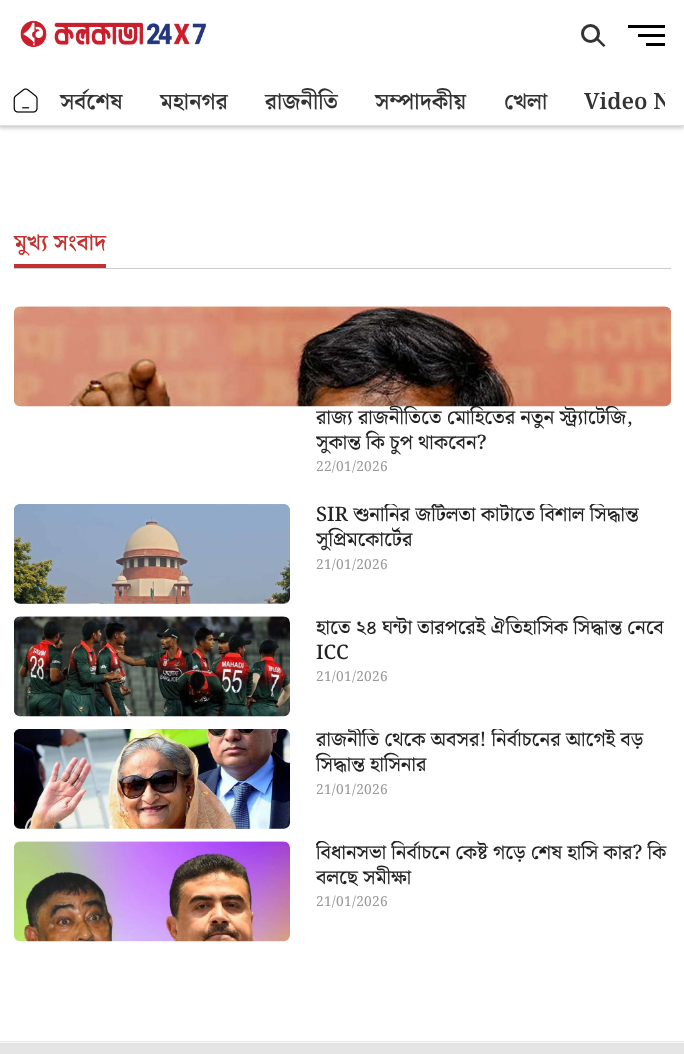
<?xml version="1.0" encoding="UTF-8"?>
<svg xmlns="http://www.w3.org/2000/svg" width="684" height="1054">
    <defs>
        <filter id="blur1" x="-50%" y="-200%" width="200%" height="500%"><feGaussianBlur stdDeviation="2"/></filter>
        <clipPath id="clip1"><rect x="1" y="84" width="664" height="45"/></clipPath>
        <clipPath id="clip2"><rect x="316" y="406" width="355" height="50"/></clipPath>
        <clipPath id="clip3"><rect x="316" y="504" width="355" height="50"/></clipPath>
        <clipPath id="clip4"><rect x="316" y="616" width="355" height="50"/></clipPath>
        <clipPath id="clip5"><rect x="316" y="729" width="355" height="50"/></clipPath>
        <clipPath id="clip6"><rect x="316" y="841" width="355" height="50"/></clipPath>
    </defs>
    <rect width="100%" height="100%" fill="#FFFFFF"/>
    <rect x="-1" y="1" width="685" height="127" fill="#000000" fill-opacity="0.23" filter="url(#blur1)"/>
    <rect x="0" y="0" width="684" height="125" fill="#FFFFFF"/>
    <rect x="0" y="125" width="684" height="1" fill="#DFDFDF"/>
    <image x="20" y="20" width="187" height="28" href="img_01.png"/>
    <circle cx="590.5" cy="33.5" r="8" fill="none" stroke="#333333" stroke-width="3"/>
    <path d="M 595 38.5 L 596.5 36.5 L 605.5 45.5 L 603.5 47 Z" fill="#333333"/>
    <rect x="638" y="34" width="27" height="3" fill="#000000"/>
    <rect x="628" y="25" width="37" height="3" fill="#000000"/>
    <rect x="646" y="43" width="19" height="3" fill="#000000"/>
    <image x="13" y="88" width="25" height="25" href="img_02.png"/>
    <text x="60" y="109" font-family="Noto Serif Bengali" font-size="22.5" font-weight="600" fill="#333333">সর্বশেষ</text>
    <text x="160" y="109" font-family="Noto Serif Bengali" font-size="22.5" font-weight="600" fill="#333333">মহানগর</text>
    <text x="265" y="109" font-family="Noto Serif Bengali" font-size="22.5" font-weight="600" fill="#333333">রাজনীতি</text>
    <text x="375" y="109" font-family="Noto Serif Bengali" font-size="22.5" font-weight="600" fill="#333333">সম্পাদকীয়</text>
    <text x="504" y="109" font-family="Noto Serif Bengali" font-size="22.5" font-weight="600" fill="#333333">খেলা</text>
    <g clip-path="url(#clip1)">
        <text x="584" y="109" font-family="Noto Serif Bengali" font-size="22.5" font-weight="600" fill="#333333">Video N</text>
    </g>
    <rect x="14" y="264" width="92" height="4" fill="#C0312F"/>
    <text x="14" y="250" font-family="Noto Serif Bengali" font-size="22.5" font-weight="600" fill="#C0312F">মুখ্য সংবাদ</text>
    <rect x="14" y="268" width="657" height="1" fill="#CCCCCC"/>
    <image x="14" y="306" width="657" height="101" href="img_03.png"/>
    <g clip-path="url(#clip2)">
        <text font-family="Noto Serif Bengali" font-size="20" font-weight="500" fill="#222222">
            <tspan x="316" y="424">রাজ্য রাজনীতিতে মোহিতের নতুন স্ট্র্যাটেজি,</tspan>
            <tspan x="316" y="449">সুকান্ত কি চুপ থাকবেন?</tspan>
        </text>
    </g>
    <text x="316" y="471" font-family="Noto Serif Bengali" font-size="13.75" letter-spacing="0.25" fill="#999999">22/01/2026</text>
    <image x="14" y="504" width="276" height="100" href="img_04.png"/>
    <g clip-path="url(#clip3)">
        <text font-family="Noto Serif Bengali" font-size="20" font-weight="500" fill="#222222">
            <tspan x="316" y="521">SIR শুনানির জটিলতা কাটাতে বিশাল সিদ্ধান্ত</tspan>
            <tspan x="316" y="546">সুপ্রিমকোর্টের</tspan>
        </text>
    </g>
    <text x="316" y="569" font-family="Noto Serif Bengali" font-size="13.75" letter-spacing="0.25" fill="#999999">21/01/2026</text>
    <image x="14" y="616" width="276" height="101" href="img_05.png"/>
    <g clip-path="url(#clip4)">
        <text x="316" y="634" font-family="Noto Serif Bengali" font-size="20" font-weight="500" fill="#222222">হাতে ২৪ ঘন্টা তারপরেই ঐতিহাসিক সিদ্ধান্ত নেবে</text>
    </g>
    <text x="316" y="659" font-family="Noto Serif Bengali" font-size="20" font-weight="500" fill="#222222">ICC</text>
    <text x="316" y="681" font-family="Noto Serif Bengali" font-size="13.75" letter-spacing="0.25" fill="#999999">21/01/2026</text>
    <image x="14" y="729" width="276" height="100" href="img_06.png"/>
    <g clip-path="url(#clip5)">
        <text x="316" y="746" font-family="Noto Serif Bengali" font-size="20" font-weight="500" fill="#222222">রাজনীতি থেকে অবসর! নির্বাচনের আগেই বড়</text>
    </g>
    <text x="316" y="771" font-family="Noto Serif Bengali" font-size="20" font-weight="500" fill="#222222">সিদ্ধান্ত হাসিনার</text>
    <text x="316" y="794" font-family="Noto Serif Bengali" font-size="13.75" letter-spacing="0.25" fill="#999999">21/01/2026</text>
    <image x="14" y="841" width="276" height="101" href="img_07.png"/>
    <g clip-path="url(#clip6)">
        <text x="316" y="859" font-family="Noto Serif Bengali" font-size="20" font-weight="500" fill="#222222">বিধানসভা নির্বাচনে কেষ্ট গড়ে শেষ হাসি কার? কি</text>
    </g>
    <text x="316" y="884" font-family="Noto Serif Bengali" font-size="20" font-weight="500" fill="#222222">বলছে সমীক্ষা</text>
    <text x="316" y="906" font-family="Noto Serif Bengali" font-size="13.75" letter-spacing="0.25" fill="#999999">21/01/2026</text>
    <rect x="0" y="1042" width="684" height="1" fill="#F9F7F6"/>
    <rect x="0" y="1041" width="684" height="1" fill="#EDEBEA"/>
    <rect x="0" y="1043" width="684" height="11" fill="#E5E5E5"/>
</svg>
